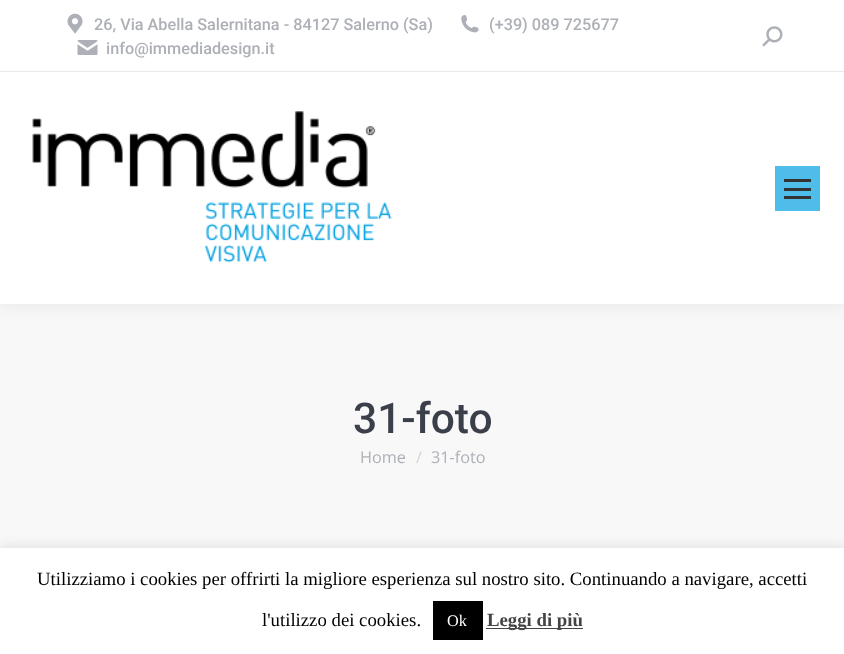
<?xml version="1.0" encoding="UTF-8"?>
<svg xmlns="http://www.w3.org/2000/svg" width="844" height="654">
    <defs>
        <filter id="blur1" x="-50%" y="-200%" width="200%" height="500%"><feGaussianBlur stdDeviation="9.5"/></filter>
        <filter id="blur2" x="-50%" y="-200%" width="200%" height="500%"><feGaussianBlur stdDeviation="6"/></filter>
    </defs>
    <rect width="100%" height="100%" fill="#F8F8F9"/>
    <rect x="-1" y="-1" width="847" height="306" fill="#000000" fill-opacity="0.07" filter="url(#blur1)"/>
    <rect x="0" y="0" width="844" height="304" fill="#FFFFFF"/>
    <image x="67" y="13" width="16" height="21" href="img_01.png"/>
    <text x="94" y="30" font-family="Roboto" font-size="16.25" font-weight="500" fill="#ADB0B6">26, Via Abella Salernitana - 84127 Salerno (Sa)</text>
    <image x="461" y="15" width="18" height="18" href="img_02.png"/>
    <text x="489" y="30" font-family="Roboto" font-size="16.25" font-weight="500" fill="#ADB0B6">(+39) 089 725677</text>
    <image x="77" y="40" width="21" height="15" href="img_03.png"/>
    <text x="106" y="54" font-family="Roboto" font-size="16.25" font-weight="500" fill="#ADB0B6">info@immediadesign.it</text>
    <image x="762" y="26" width="21" height="21" href="img_04.png"/>
    <rect x="0" y="71" width="844" height="1" fill="#E9E9E9"/>
    <image x="32" y="111" width="360" height="152" href="img_05.png"/>
    <rect x="775" y="166" width="45" height="45" fill="#4EBDEA"/>
    <rect x="784" y="179" width="27" height="3" fill="#333333"/>
    <rect x="784" y="188" width="27" height="3" fill="#333333"/>
    <rect x="784" y="196" width="27" height="3" fill="#333333"/>
    <text x="353" y="433" font-family="Roboto" font-size="42.5" font-weight="500" fill="#3B3F4A">31-foto</text>
    <text x="360" y="463" font-family="Open Sans" font-size="16.25" fill="#ADB0B6">Home</text>
    <text x="416" y="463" font-family="Open Sans" font-size="16.25" fill="#D3D4D8">/</text>
    <text x="431" y="463" font-family="Open Sans" font-size="16.25" fill="#ADB0B6">31-foto</text>
    <rect x="0" y="546" width="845" height="108" fill="#ACABAB" fill-opacity="0.3" filter="url(#blur2)"/>
    <rect x="0" y="548" width="844" height="106" fill="#FFFFFF"/>
    <text x="37" y="585" font-family="Liberation Serif" font-size="18.75" fill="#000000">Utilizziamo i cookies per offrirti la migliore esperienza sul nostro sito. Continuando a navigare, accetti</text>
    <text x="262" y="626" font-family="Liberation Serif" font-size="18.75" fill="#000000">l'utilizzo dei cookies.</text>
    <rect x="433" y="601" width="50" height="39" fill="#000000"/>
    <text x="447" y="626" font-family="Liberation Serif" font-size="16.25" fill="#FFFFFF">Ok</text>
    <rect x="486" y="628" width="97" height="1" fill="#444444"/>
    <text x="487" y="626" font-family="Liberation Serif" font-size="18.75" font-weight="700" fill="#444444">Leggi di più</text>
</svg>
